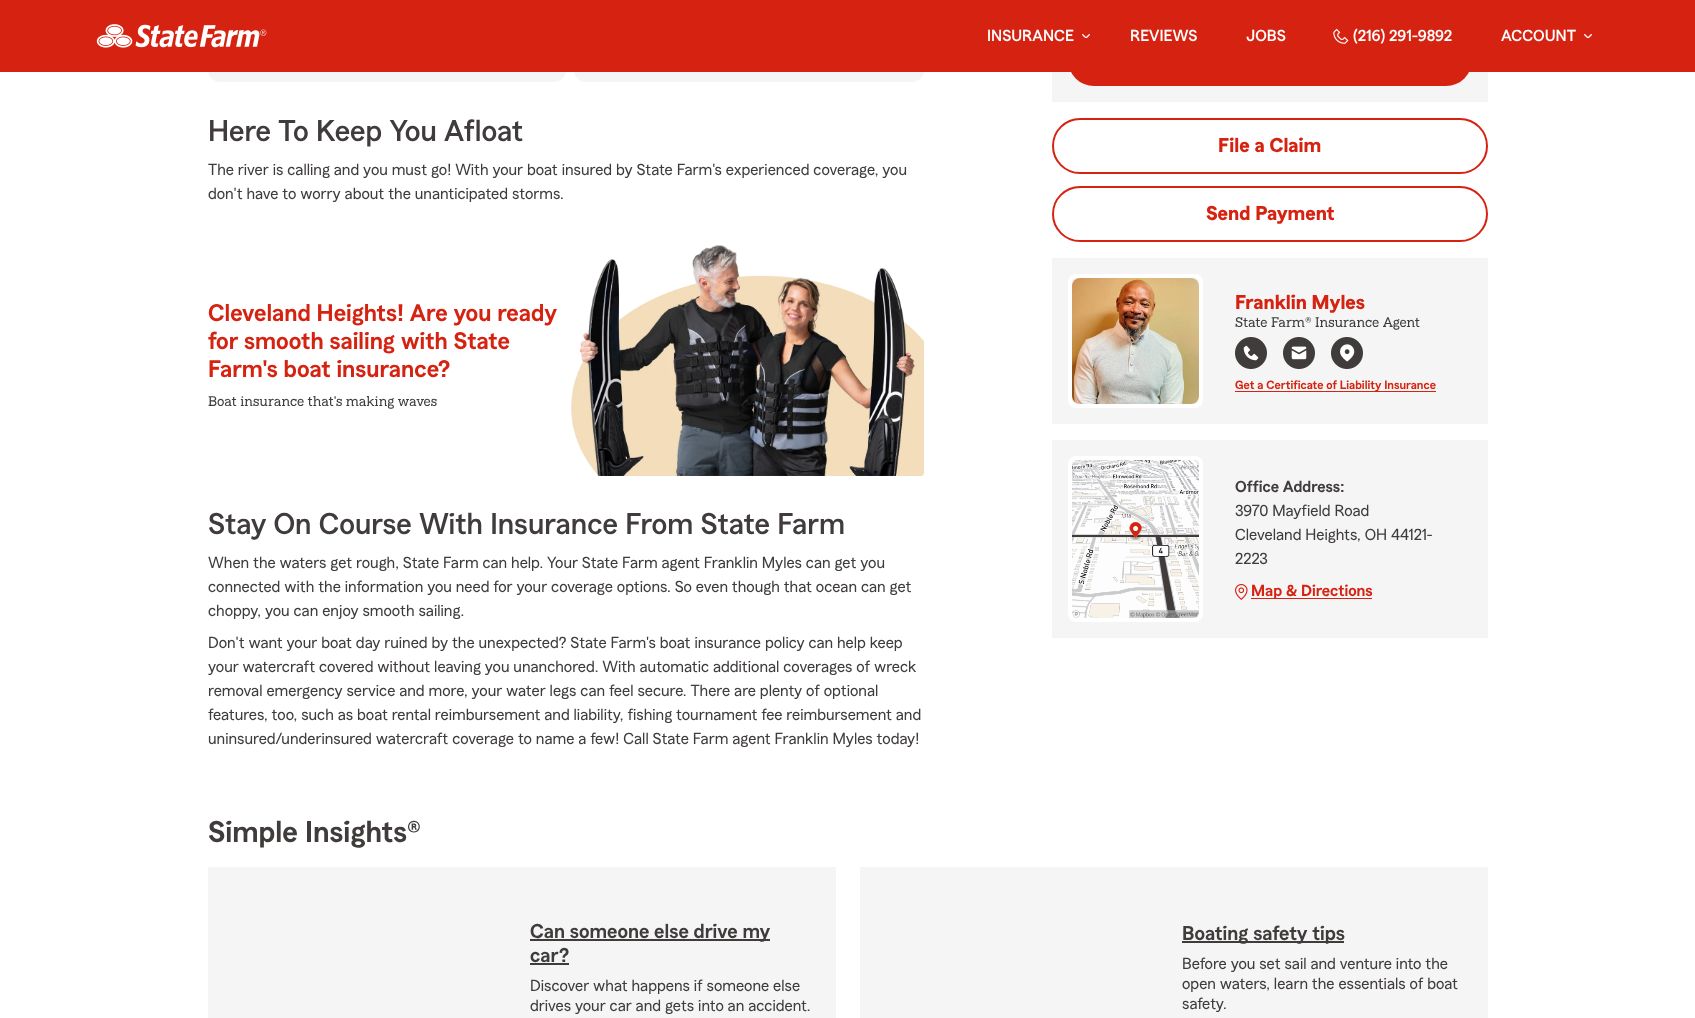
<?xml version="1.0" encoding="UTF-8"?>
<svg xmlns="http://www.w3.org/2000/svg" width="1695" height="1018">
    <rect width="100%" height="100%" fill="#FFFFFF"/>
    <rect x="208" y="46" width="358" height="36" rx="12" fill="#F5F5F5"/>
    <rect x="574" y="46" width="350" height="36" rx="12" fill="#F5F5F5"/>
    <rect x="1052" y="72" width="436" height="30" fill="#F5F5F5"/>
    <rect x="1068" y="34" width="404" height="52" rx="26" fill="#D62311"/>
    <rect x="0" y="0" width="1695" height="72" fill="#D62311"/>
    <image x="96" y="24" width="171" height="24" href="img_01.png"/>
    <text x="987" y="41" font-family="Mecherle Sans" font-size="16" font-weight="500" fill="#FFFFFF">INSURANCE</text>
    <image x="1082" y="34" width="8" height="4" href="img_02.png"/>
    <text x="1130" y="41" font-family="Mecherle Sans" font-size="16" font-weight="500" fill="#FFFFFF">REVIEWS</text>
    <text x="1246" y="41" font-family="Mecherle Sans" font-size="16" font-weight="500" fill="#FFFFFF">JOBS</text>
    <image x="1333" y="28" width="16" height="16" href="img_03.png"/>
    <text x="1353" y="41" font-family="Mecherle Sans" font-size="16" font-weight="500" fill="#FFFFFF">(216) 291-9892</text>
    <text x="1501" y="41" font-family="Mecherle Sans" font-size="16" font-weight="500" fill="#FFFFFF">ACCOUNT</text>
    <image x="1584" y="34" width="8" height="4" href="img_02.png"/>
    <text x="208" y="141" font-family="Mecherle Sans" font-size="30" font-weight="500" fill="#403C3C">Here To Keep You Afloat</text>
    <text font-family="Mecherle Sans" font-size="16" fill="#403C3C">
        <tspan x="208" y="175">The river is calling and you must go! With your boat insured by State Farm's experienced coverage, you</tspan>
        <tspan x="208" y="199">don't have to worry about the unanticipated storms.</tspan>
    </text>
    <text font-family="Mecherle Sans" font-size="24" font-weight="600" fill="#D62311">
        <tspan x="208" y="321">Cleveland Heights! Are you ready</tspan>
        <tspan x="208" y="349">for smooth sailing with State</tspan>
        <tspan x="208" y="377">Farm's boat insurance?</tspan>
    </text>
    <text x="208" y="406" font-family="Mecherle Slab" font-size="14" fill="#403C3C">Boat insurance that's making waves</text>
    <image x="571" y="245" width="353" height="231" href="img_04.png"/>
    <text x="208" y="534" font-family="Mecherle Sans" font-size="30" font-weight="500" fill="#403C3C">Stay On Course With Insurance From State Farm</text>
    <text font-family="Mecherle Sans" font-size="16" fill="#403C3C">
        <tspan x="208" y="568">When the waters get rough, State Farm can help. Your State Farm agent Franklin Myles can get you</tspan>
        <tspan x="208" y="592">connected with the information you need for your coverage options. So even though that ocean can get</tspan>
        <tspan x="208" y="616">choppy, you can enjoy smooth sailing.</tspan>
    </text>
    <text font-family="Mecherle Sans" font-size="16" fill="#403C3C">
        <tspan x="208" y="648">Don't want your boat day ruined by the unexpected? State Farm's boat insurance policy can help keep</tspan>
        <tspan x="208" y="672">your watercraft covered without leaving you unanchored. With automatic additional coverages of wreck</tspan>
        <tspan x="208" y="696">removal emergency service and more, your water legs can feel secure. There are plenty of optional</tspan>
        <tspan x="208" y="720">features, too, such as boat rental reimbursement and liability, fishing tournament fee reimbursement and</tspan>
        <tspan x="208" y="744">uninsured/underinsured watercraft coverage to name a few! Call State Farm agent Franklin Myles today!</tspan>
    </text>
    <rect x="1053" y="119" width="434" height="54" rx="27" fill="none" stroke="#D62311" stroke-width="2"/>
    <text x="1218" y="152" font-family="Mecherle Sans" font-size="20" font-weight="700" fill="#D62311">File a Claim</text>
    <rect x="1053" y="187" width="434" height="54" rx="27" fill="none" stroke="#D62311" stroke-width="2"/>
    <text x="1206" y="220" font-family="Mecherle Sans" font-size="20" font-weight="700" fill="#D62311">Send Payment</text>
    <rect x="1052" y="258" width="436" height="166" fill="#F5F5F5"/>
    <rect x="1070" y="276" width="131" height="130" rx="6" fill="none" stroke="#FFFFFF" stroke-width="4"/>
    <image x="1072" y="278" width="127" height="126" href="img_05.png"/>
    <text x="1235" y="309" font-family="Mecherle Sans" font-size="20" font-weight="700" fill="#D62311">Franklin Myles</text>
    <text x="1235" y="327" font-family="Mecherle Slab" font-size="14" fill="#403C3C">State Farm® Insurance Agent</text>
    <image x="1235" y="337" width="32" height="32" href="img_06.png"/>
    <image x="1283" y="337" width="32" height="32" href="img_07.png"/>
    <image x="1331" y="337" width="32" height="32" href="img_08.png"/>
    <rect x="1235" y="391" width="201" height="1" fill="#D62311"/>
    <text x="1235" y="389" font-family="Mecherle Sans" font-size="12" font-weight="600" fill="#D62311">Get a Certificate of Liability Insurance</text>
    <rect x="1052" y="440" width="436" height="198" fill="#F5F5F5"/>
    <rect x="1070" y="458" width="131" height="162" rx="6" fill="none" stroke="#FFFFFF" stroke-width="4"/>
    <image x="1072" y="460" width="127" height="158" href="img_09.png"/>
    <text x="1235" y="492" font-family="Mecherle Sans" font-size="16" font-weight="600" fill="#403C3C">Office Address:</text>
    <text font-family="Mecherle Sans" font-size="16" fill="#403C3C">
        <tspan x="1235" y="516">3970 Mayfield Road</tspan>
        <tspan x="1235" y="540">Cleveland Heights, OH 44121-</tspan>
        <tspan x="1235" y="564">2223</tspan>
    </text>
    <image x="1235" y="584" width="13" height="16" href="img_10.png"/>
    <rect x="1251" y="598" width="121" height="1" fill="#D62311"/>
    <text x="1251" y="596" font-family="Mecherle Sans" font-size="16" font-weight="600" fill="#D62311">Map &amp; Directions</text>
    <text x="208" y="842" font-family="Mecherle Sans" font-size="30" font-weight="600" fill="#403C3C">Simple Insights®</text>
    <rect x="208" y="867" width="628" height="151" fill="#F5F5F5"/>
    <rect x="530" y="939" width="240" height="2" fill="#403C3C"/>
    <text font-family="Mecherle Sans" font-size="20" font-weight="600" fill="#403C3C">
        <tspan x="530" y="938">Can someone else drive my</tspan>
        <tspan x="530" y="962">car?</tspan>
    </text>
    <rect x="530" y="963" width="39" height="2" fill="#403C3C"/>
    <text font-family="Mecherle Sans" font-size="16" fill="#403C3C">
        <tspan x="530" y="991">Discover what happens if someone else</tspan>
        <tspan x="530" y="1011">drives your car and gets into an accident.</tspan>
    </text>
    <rect x="860" y="867" width="628" height="151" fill="#F5F5F5"/>
    <rect x="1182" y="941" width="162" height="2" fill="#403C3C"/>
    <text x="1182" y="940" font-family="Mecherle Sans" font-size="20" font-weight="600" fill="#403C3C">Boating safety tips</text>
    <text font-family="Mecherle Sans" font-size="16" fill="#403C3C">
        <tspan x="1182" y="969">Before you set sail and venture into the</tspan>
        <tspan x="1182" y="989">open waters, learn the essentials of boat</tspan>
        <tspan x="1182" y="1009">safety.</tspan>
    </text>
</svg>
